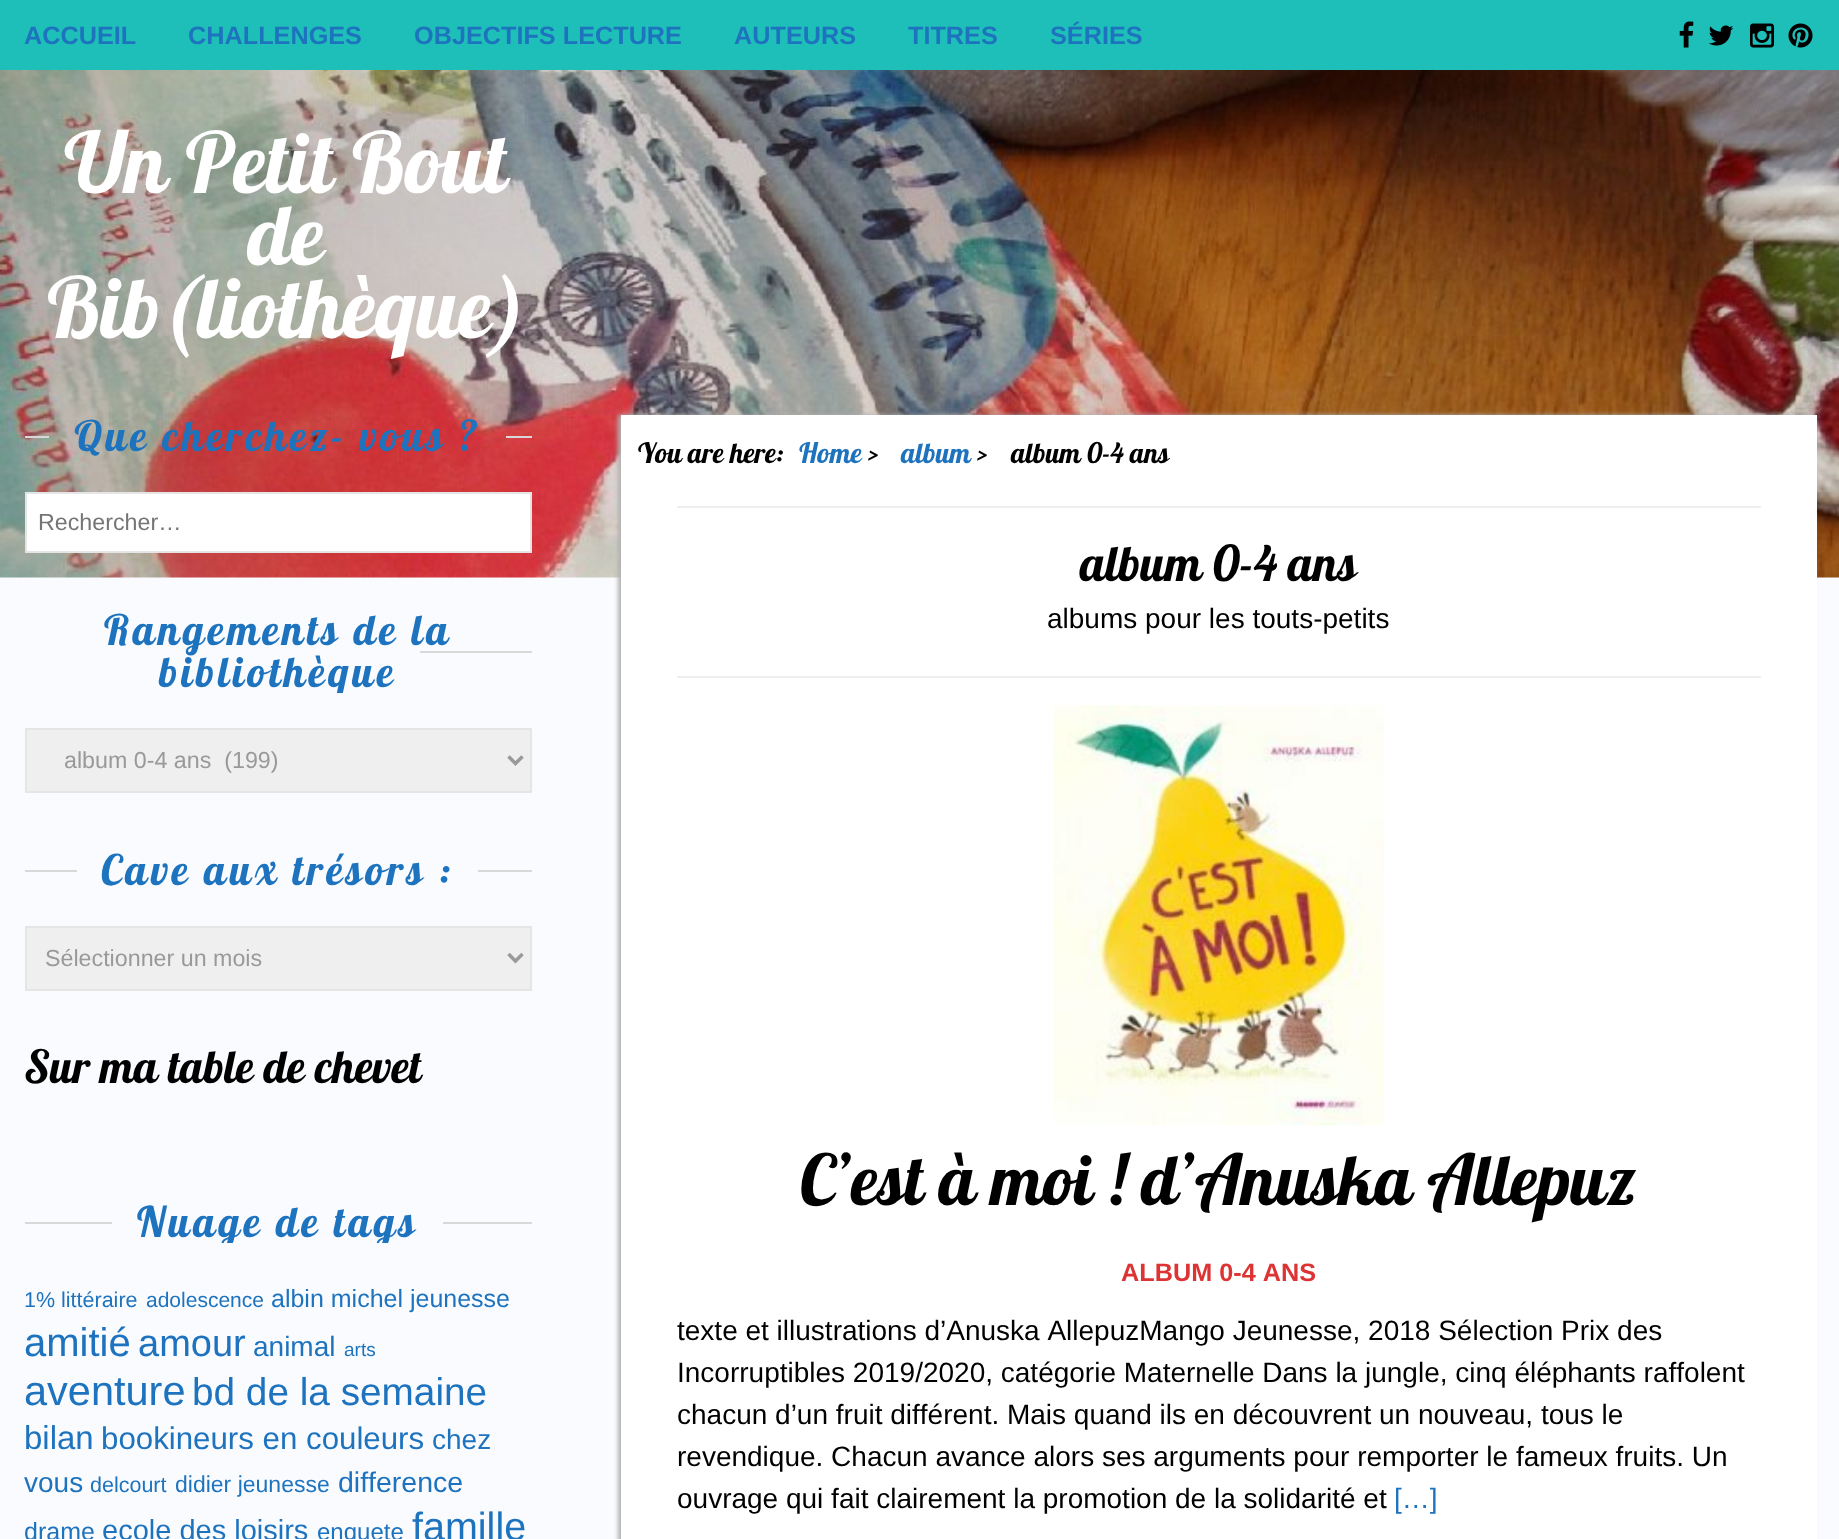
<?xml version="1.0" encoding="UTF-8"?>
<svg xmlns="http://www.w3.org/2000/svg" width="1839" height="1539">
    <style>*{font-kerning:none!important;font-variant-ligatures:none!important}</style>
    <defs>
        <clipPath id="clip1"><rect x="25" y="609" width="507" height="84"/></clipPath>
        <clipPath id="clip2"><rect x="25" y="1201" width="507" height="42"/></clipPath>
        <filter id="blur1" x="-50%" y="-200%" width="200%" height="500%"><feGaussianBlur stdDeviation="2"/></filter>
    </defs>
    <rect width="100%" height="100%" fill="#F9FBFF"/>
    <image x="0" y="70" width="1839" height="508" href="img_01.png"/>
    <rect x="0" y="0" width="1839" height="70" fill="#1EBFB9"/>
    <text x="24" y="44" font-family="Liberation Sans" font-size="25.25" font-weight="700" fill="#1E73BE">ACCUEIL</text>
    <text x="188" y="44" font-family="Liberation Sans" font-size="25.25" font-weight="700" fill="#1E73BE">CHALLENGES</text>
    <text x="414" y="44" font-family="Liberation Sans" font-size="25.25" font-weight="700" fill="#1E73BE">OBJECTIFS LECTURE</text>
    <text x="734" y="44" font-family="Liberation Sans" font-size="25.25" font-weight="700" fill="#1E73BE">AUTEURS</text>
    <text x="908" y="44" font-family="Liberation Sans" font-size="25.25" font-weight="700" fill="#1E73BE">TITRES</text>
    <text x="1050" y="44" font-family="Liberation Sans" font-size="25.25" font-weight="700" fill="#1E73BE">SÉRIES</text>
    <image x="1679" y="21" width="15" height="27" href="img_02.png"/>
    <image x="1709" y="25" width="25" height="21" href="img_03.png"/>
    <image x="1750" y="23" width="24" height="25" href="img_04.png"/>
    <image x="1788" y="23" width="25" height="25" href="img_05.png"/>
    <text x="65" y="193" font-family="Lobster" font-size="84" fill="#FFFFFF">Un Petit Bout</text>
    <text x="248" y="265" font-family="Lobster" font-size="84" fill="#FFFFFF">de</text>
    <text x="47" y="338" font-family="Lobster" font-size="84" fill="#FFFFFF">Bib(liothèque)</text>
    <rect x="25" y="436" width="24" height="2" fill="#D8D8D8"/>
    <text x="74" y="451" font-family="Lobster" font-size="42" letter-spacing="3.5" fill="#1E73BE">Que cherchez- vous ?</text>
    <rect x="506" y="436" width="26" height="2" fill="#D8D8D8"/>
    <rect x="26" y="493" width="505" height="59" fill="#FFFFFF" stroke="#E5E5E5" stroke-width="2"/>
    <text x="38" y="530" font-family="Liberation Sans" font-size="23.25" fill="#757575">Rechercher…</text>
    <text x="104" y="645" font-family="Lobster" font-size="42" letter-spacing="3.5" fill="#1E73BE">Rangements de la</text>
    <rect x="420" y="651" width="112" height="2" fill="#D8D8D8"/>
    <g clip-path="url(#clip1)">
        <text x="159" y="687" font-family="Lobster" font-size="42" letter-spacing="3.5" fill="#1E73BE">bibliothèque</text>
    </g>
    <rect x="26" y="729" width="505" height="63" fill="#EFEFEF" stroke="#E5E5E5" stroke-width="2"/>
    <path d="M 508.5 756.5 L 515.5 763.5 L 522.5 756.5" fill="none" stroke="#999999" stroke-width="3.5"/>
    <text x="64" y="768" font-family="Liberation Sans" font-size="23.25" fill="#999999" xml:space="preserve">album 0-4 ans  (199)</text>
    <rect x="25" y="870" width="52" height="2" fill="#D8D8D8"/>
    <text x="101" y="885" font-family="Lobster" font-size="42" letter-spacing="3.5" fill="#1E73BE">Cave aux trésors :</text>
    <rect x="478" y="870" width="54" height="2" fill="#D8D8D8"/>
    <rect x="26" y="927" width="505" height="63" fill="#EFEFEF" stroke="#E5E5E5" stroke-width="2"/>
    <path d="M 508.5 954 L 515.5 961 L 522.5 954" fill="none" stroke="#999999" stroke-width="3.5"/>
    <text x="45" y="966" font-family="Liberation Sans" font-size="23.25" fill="#999999">Sélectionner un mois</text>
    <text x="24" y="1083" font-family="Lobster" font-size="45.5" fill="#000000">Sur ma table de chevet</text>
    <rect x="25" y="1222" width="87" height="2" fill="#D8D8D8"/>
    <g clip-path="url(#clip2)">
        <text x="137" y="1237" font-family="Lobster" font-size="42" letter-spacing="3.5" fill="#1E73BE">Nuage de tags</text>
    </g>
    <rect x="443" y="1222" width="89" height="2" fill="#D8D8D8"/>
    <text x="24" y="1307" font-family="Liberation Sans" font-size="21.5" fill="#1E73BE">1% littéraire</text>
    <text x="146" y="1307" font-family="Liberation Sans" font-size="21" fill="#1E73BE">adolescence</text>
    <text x="271" y="1307" font-family="Liberation Sans" font-size="25" fill="#1E73BE">albin michel jeunesse</text>
    <text x="24" y="1356" font-family="Liberation Sans" font-size="40" fill="#1E73BE">amitié</text>
    <text x="138" y="1356" font-family="Liberation Sans" font-size="38" fill="#1E73BE">amour</text>
    <text x="253" y="1356" font-family="Liberation Sans" font-size="28" fill="#1E73BE">animal</text>
    <text x="344" y="1356" font-family="Liberation Sans" font-size="19" fill="#1E73BE">arts</text>
    <text x="24" y="1405" font-family="Liberation Sans" font-size="41.5" fill="#1E73BE">aventure</text>
    <text x="192" y="1405" font-family="Liberation Sans" font-size="38.75" fill="#1E73BE">bd de la semaine</text>
    <text x="24" y="1449" font-family="Liberation Sans" font-size="33" fill="#1E73BE">bilan</text>
    <text x="101" y="1449" font-family="Liberation Sans" font-size="31.25" fill="#1E73BE">bookineurs en couleurs</text>
    <text x="432" y="1449" font-family="Liberation Sans" font-size="28" fill="#1E73BE">chez</text>
    <text x="24" y="1492" font-family="Liberation Sans" font-size="28" fill="#1E73BE">vous</text>
    <text x="90" y="1492" font-family="Liberation Sans" font-size="21.5" fill="#1E73BE">delcourt</text>
    <text x="175" y="1492" font-family="Liberation Sans" font-size="23" fill="#1E73BE">didier jeunesse</text>
    <text x="338" y="1492" font-family="Liberation Sans" font-size="28.5" fill="#1E73BE">difference</text>
    <text x="24" y="1540" font-family="Liberation Sans" font-size="25" fill="#1E73BE">drame</text>
    <text x="102" y="1540" font-family="Liberation Sans" font-size="29" fill="#1E73BE">ecole des loisirs</text>
    <text x="317" y="1540" font-family="Liberation Sans" font-size="24" fill="#1E73BE">enquete</text>
    <text x="412" y="1540" font-family="Liberation Sans" font-size="39.5" fill="#1E73BE">famille</text>
    <rect x="618" y="415" width="1195" height="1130" fill="#B1B1B1" filter="url(#blur1)"/>
    <rect x="621" y="415" width="1196" height="1124" fill="#FFFFFF"/>
    <text x="638" y="463" font-family="Lobster" font-size="28" fill="#000000">You are here:</text>
    <text x="799" y="463" font-family="Lobster" font-size="28" fill="#1E73BE">Home</text>
    <text x="868" y="463" font-family="Lobster" font-size="28" fill="#000000">&gt;</text>
    <text x="901" y="463" font-family="Lobster" font-size="28" fill="#1E73BE">album</text>
    <text x="977" y="463" font-family="Lobster" font-size="28" fill="#000000">&gt;</text>
    <text x="1011" y="463" font-family="Lobster" font-size="28" fill="#000000">album 0-4 ans</text>
    <rect x="677" y="506" width="1084" height="2" fill="#EEEEEE"/>
    <rect x="677" y="676" width="1084" height="2" fill="#EEEEEE"/>
    <text x="1080" y="581" font-family="Lobster" font-size="49" fill="#000000">album 0-4 ans</text>
    <text x="1047" y="628" font-family="Liberation Sans" font-size="28" fill="#000000">albums pour les touts-petits</text>
    <image x="1053" y="705" width="331" height="421" href="img_06.png"/>
    <text x="800" y="1205" font-family="Lobster" font-size="70" fill="#000000">C’est à moi ! d’Anuska</text>
    <text x="1427" y="1205" font-family="Lobster" font-size="70" fill="#000000">Allepuz</text>
    <text x="1121" y="1281" font-family="Liberation Sans" font-size="25.25" font-weight="700" fill="#DD3333">ALBUM 0-4 ANS</text>
    <text font-family="Liberation Sans" font-size="28" fill="#000000">
        <tspan x="677" y="1340">texte et illustrations d’Anuska AllepuzMango Jeunesse, 2018 Sélection Prix des</tspan>
        <tspan x="677" y="1382">Incorruptibles 2019/2020, catégorie Maternelle Dans la jungle, cinq éléphants raffolent</tspan>
        <tspan x="677" y="1424">chacun d’un fruit différent. Mais quand ils en découvrent un nouveau, tous le</tspan>
        <tspan x="677" y="1466">revendique. Chacun avance alors ses arguments pour remporter le fameux fruits. Un</tspan>
        <tspan x="677" y="1508">ouvrage qui fait clairement la promotion de la solidarité et</tspan>
    </text>
    <text x="1394" y="1508" font-family="Liberation Sans" font-size="28" fill="#1E73BE">[…]</text>
</svg>
